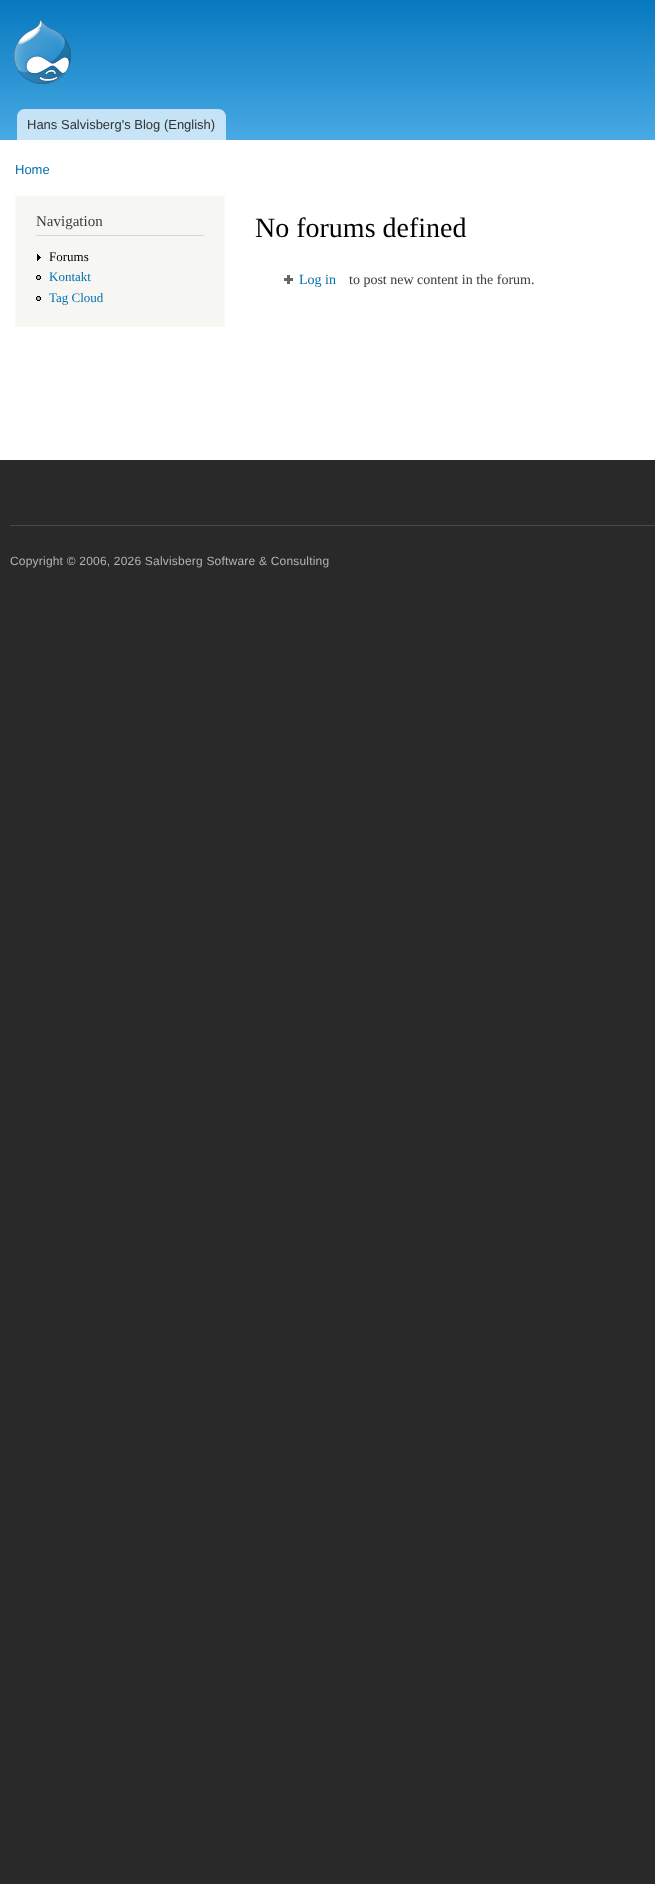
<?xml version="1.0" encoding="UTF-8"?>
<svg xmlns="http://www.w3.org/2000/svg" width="655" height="1884">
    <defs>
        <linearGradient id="g1" gradientUnits="userSpaceOnUse" x1="480" y1="0" x2="480" y2="140"><stop offset="0" stop-color="#0779BF"/><stop offset="1" stop-color="#48A9E4"/></linearGradient>
    </defs>
    <rect width="100%" height="100%" fill="#292929"/>
    <rect x="0" y="140" width="655" height="320" fill="#FFFFFF"/>
    <rect x="0" y="0" width="655" height="140" fill="url(#g1)"/>
    <image x="14" y="19" width="57" height="65" href="img_01.png"/>
    <path d="M 25 109 H 218 C 222.5 109 226 112.5 226 117 V 140 H 17 V 117 C 17 112.5 20.5 109 25 109 Z" fill="#FFFFFF" fill-opacity="0.7"/>
    <text x="27" y="129" font-family="Liberation Sans" font-size="13" fill="#333333">Hans Salvisberg's Blog (English)</text>
    <text x="15" y="174" font-family="Liberation Sans" font-size="13" fill="#0071B3">Home</text>
    <rect x="15.5" y="196.5" width="209" height="130" fill="#F6F6F2" stroke="#F9F9F9"/>
    <rect x="36" y="235" width="168" height="1" fill="#D6D6D6"/>
    <text x="36" y="226" font-family="Liberation Serif" font-size="15" fill="#3B3B3B">Navigation</text>
    <image x="37" y="254" width="4" height="7" href="img_02.png"/>
    <text x="49" y="261" font-family="Liberation Serif" font-size="13" fill="#000000">Forums</text>
    <image x="36" y="275" width="5" height="5" href="img_03.png"/>
    <text x="49" y="281" font-family="Liberation Serif" font-size="13" fill="#0071B3">Kontakt</text>
    <image x="36" y="296" width="5" height="5" href="img_03.png"/>
    <text x="49" y="302" font-family="Liberation Serif" font-size="13" fill="#0071B3">Tag Cloud</text>
    <text x="255" y="237" font-family="Liberation Serif" font-size="28" fill="#000000">No forums defined</text>
    <image x="284" y="275" width="9" height="9" href="img_04.png"/>
    <text x="299" y="284" font-family="Liberation Serif" font-size="14" fill="#0071B3">Log in</text>
    <text x="349" y="284" font-family="Liberation Serif" font-size="14" fill="#3B3B3B">to post new content in the forum.</text>
    <rect x="10" y="525" width="645" height="1" fill="#494949"/>
    <text x="10" y="565" font-family="Liberation Sans" font-size="12" letter-spacing="0.2" fill="#B4B4B4">Copyright © 2006, 2026 Salvisberg Software &amp; Consulting</text>
</svg>
